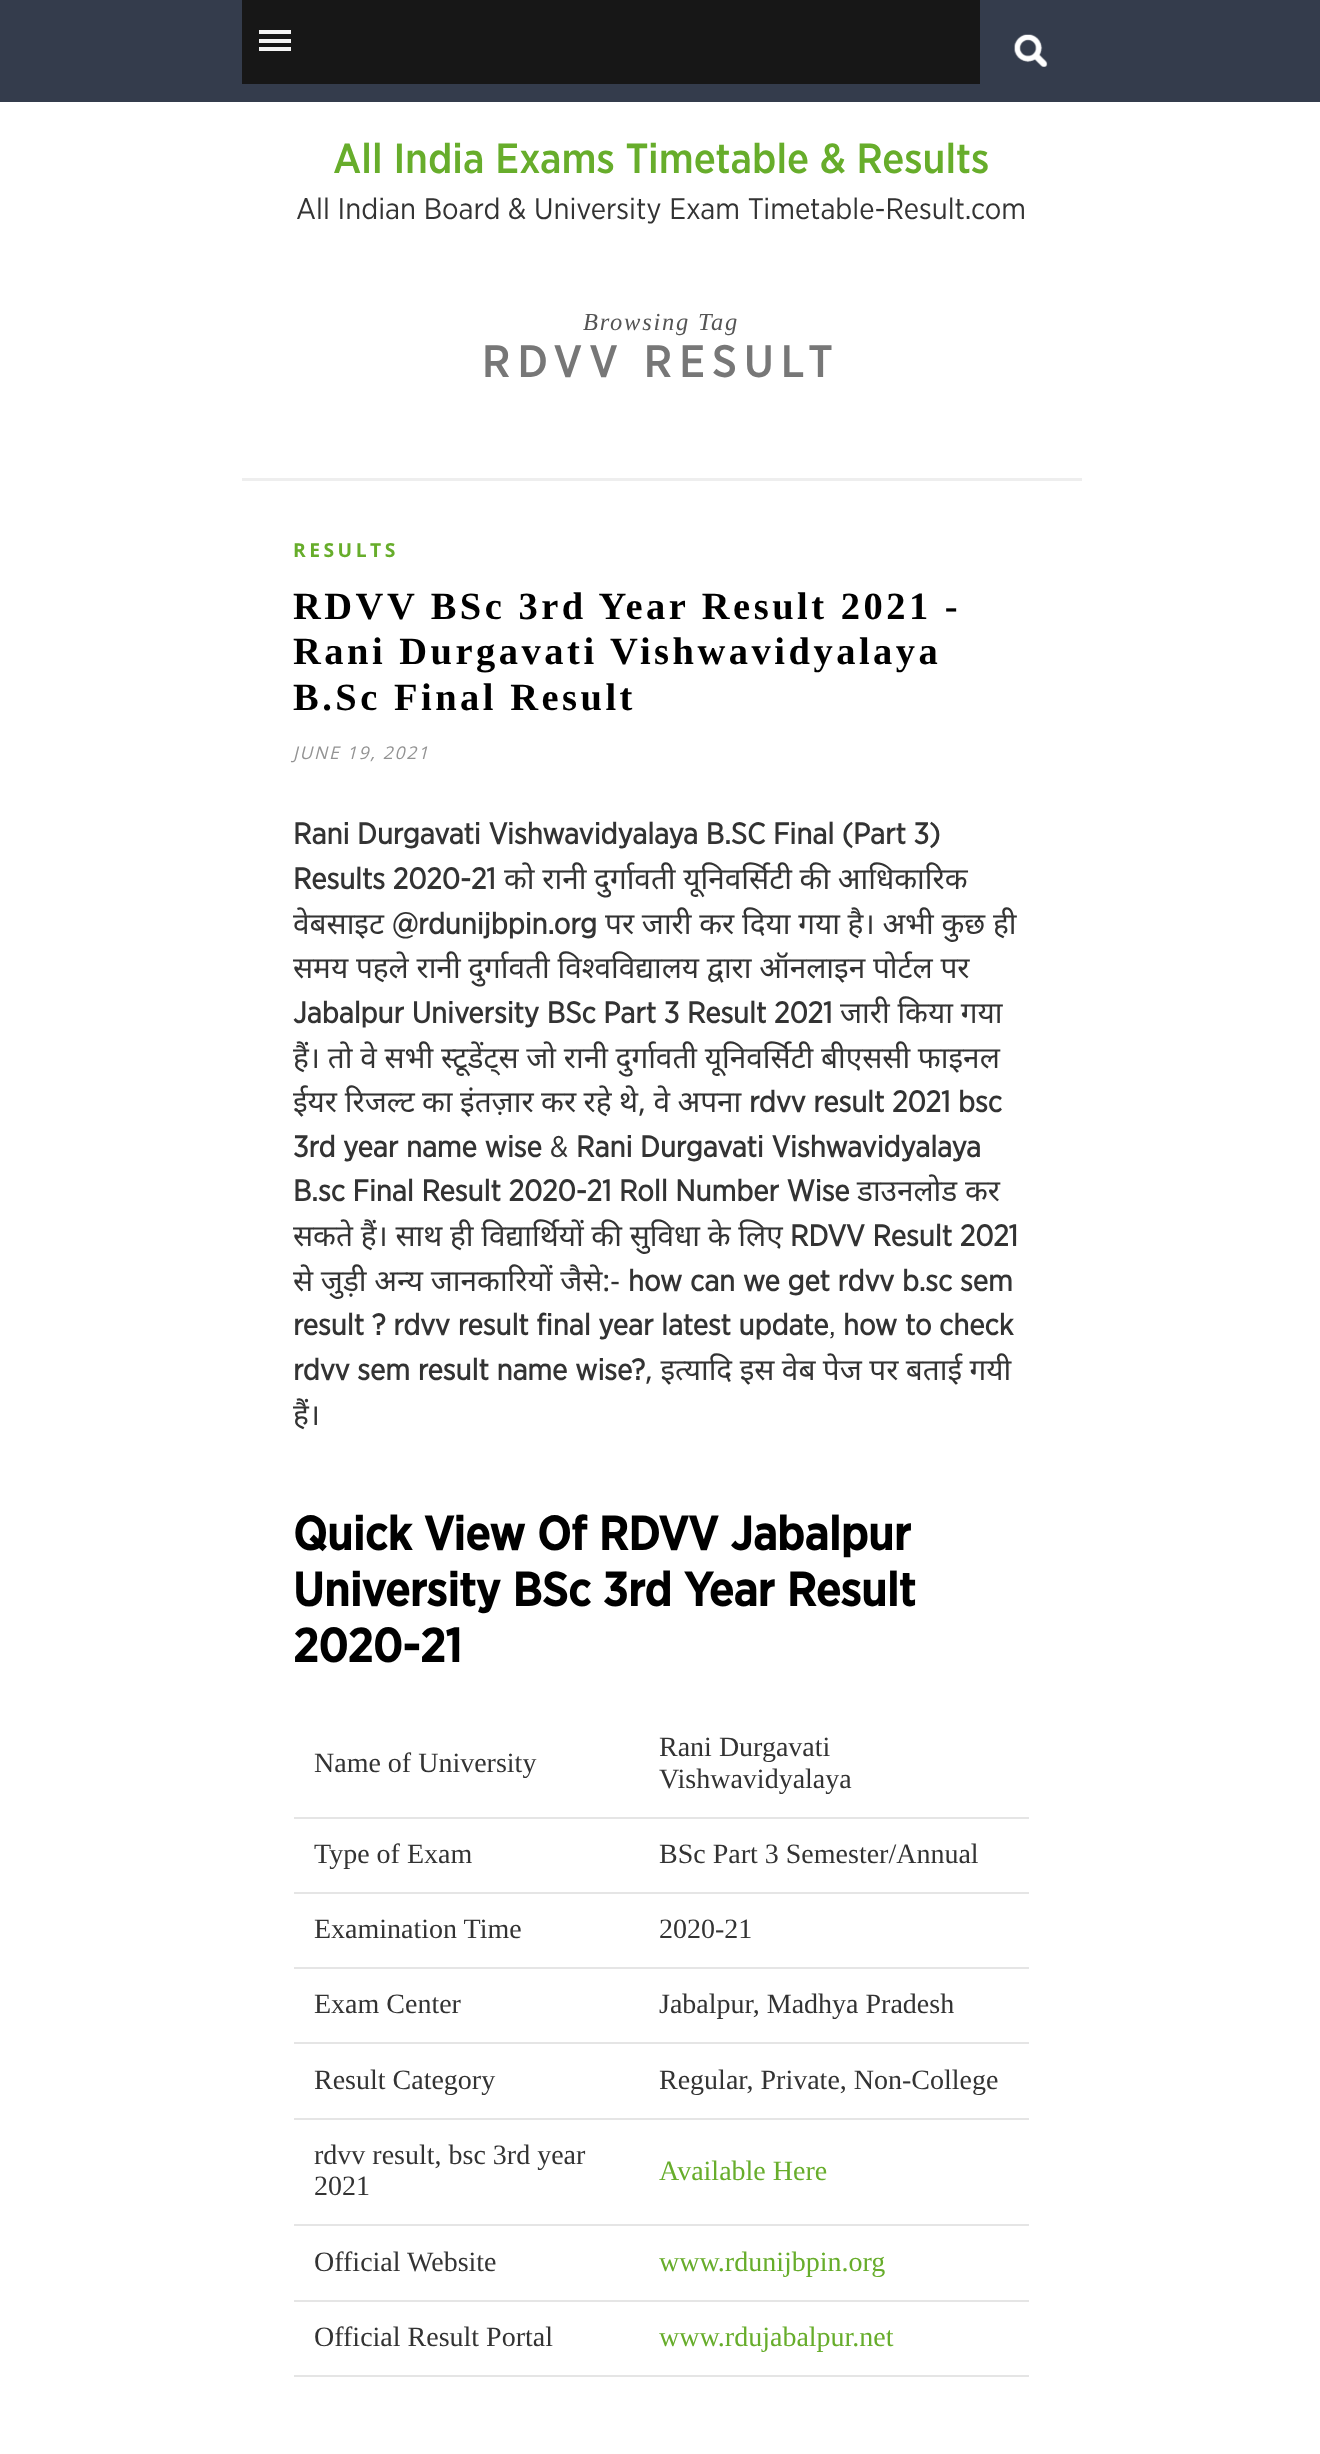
<?xml version="1.0" encoding="UTF-8"?>
<svg xmlns="http://www.w3.org/2000/svg" width="1320" height="2454">
    <rect width="100%" height="100%" fill="#FFFFFF"/>
    <rect x="0" y="0" width="1320" height="102" fill="#343C4C"/>
    <rect x="242" y="0" width="738" height="84" fill="#171717"/>
    <rect x="259" y="30" width="32" height="4" fill="#F5F5F5"/>
    <rect x="259" y="39" width="32" height="4" fill="#F5F5F5"/>
    <rect x="259" y="47" width="32" height="4" fill="#F5F5F5"/>
    <image x="1014" y="35" width="34" height="32" href="img_02.png"/>
    <image x="1014" y="34" width="33" height="33" href="img_01.png"/>
    <text x="333" y="173" font-family="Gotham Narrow" font-size="42" font-weight="500" fill="#67AD2B">All India Exams Timetable &amp; Results</text>
    <text x="296" y="219" font-family="Gotham Narrow" font-size="29.75" fill="#333333">All Indian Board &amp; University Exam Timetable-Result.com</text>
    <text x="583" y="330" font-family="Liberation Serif" font-size="24.5" font-style="italic" letter-spacing="1.75" fill="#555555">Browsing Tag</text>
    <text x="482" y="377" font-family="Gotham Narrow" font-size="45.5" font-weight="500" letter-spacing="7" fill="#777777">RDVV RESULT</text>
    <rect x="242" y="478" width="840" height="3" fill="#EEEEEE"/>
    <text x="293" y="557" font-family="Open Sans" font-size="19.25" font-weight="700" letter-spacing="3.5" fill="#67AD2B">RESULTS</text>
    <text font-family="Liberation Serif" font-size="38.5" font-weight="700" letter-spacing="3.5" fill="#000000">
        <tspan x="293" y="619">RDVV BSc 3rd Year Result 2021 -</tspan>
        <tspan x="293" y="664">Rani Durgavati Vishwavidyalaya</tspan>
        <tspan x="293" y="710">B.Sc Final Result</tspan>
    </text>
    <text x="293" y="759" font-family="Open Sans" font-size="17.5" font-style="italic" letter-spacing="1.75" fill="#939393">JUNE 19, 2021</text>
    <text font-family="Gotham Narrow" font-size="29.75" font-weight="700" fill="#333333">
        <tspan x="293" y="844">Rani Durgavati Vishwavidyalaya B.SC Final (Part 3)</tspan>
        <tspan x="293" y="889">Results 2020-21</tspan>
    </text>
    <text x="504" y="889" font-family="Noto Sans" font-size="29.75" fill="#333333">को रानी दुर्गावती यूनिवर्सिटी की आधिकारिक</text>
    <text x="293" y="934" font-family="Noto Sans" font-size="29.75" fill="#333333">वेबसाइट</text>
    <text x="392" y="934" font-family="Gotham Narrow" font-size="29.75" font-weight="700" fill="#333333">@rdunijbpin.org</text>
    <text x="605" y="934" font-family="Noto Sans" font-size="29.75" fill="#333333">पर जारी कर दिया गया है। अभी कुछ ही</text>
    <text x="293" y="978" font-family="Noto Sans" font-size="29.75" fill="#333333">समय पहले रानी दुर्गावती विश्वविद्यालय द्वारा ऑनलाइन पोर्टल पर</text>
    <text x="293" y="1023" font-family="Gotham Narrow" font-size="29.75" font-weight="700" fill="#333333">Jabalpur University BSc Part 3 Result 2021</text>
    <text x="840" y="1023" font-family="Noto Sans" font-size="29.75" fill="#333333">जारी किया गया</text>
    <text font-family="Noto Sans" font-size="29.75" fill="#333333">
        <tspan x="293" y="1068">हैं। तो वे सभी स्टूडेंट्स जो रानी दुर्गावती यूनिवर्सिटी बीएससी फाइनल</tspan>
        <tspan x="293" y="1112">ईयर रिजल्ट</tspan>
    </text>
    <text x="422" y="1112" word-spacing="-0.25" font-family="Noto Sans" font-size="29.75" fill="#333333">का इंतज़ार कर रहे थे, वे अपना</text>
    <text x="749" y="1112" font-family="Gotham Narrow" font-size="29.75" font-weight="700" fill="#333333">rdvv result 2021 bsc</text>
    <text x="293" y="1157" font-family="Gotham Narrow" font-size="29.75" font-weight="700" fill="#333333">3rd year name wise</text>
    <text x="550" y="1157" font-family="Gotham Narrow" font-size="29.75" fill="#333333">&amp;</text>
    <text x="576" y="1157" font-family="Gotham Narrow" font-size="29.75" font-weight="700" fill="#333333">Rani Durgavati Vishwavidyalaya</text>
    <text x="293" y="1201" font-family="Gotham Narrow" font-size="29.75" font-weight="700" fill="#333333">B.sc Final Result 2020-21 Roll Number Wise</text>
    <text x="857" y="1201" font-family="Noto Sans" font-size="29.75" fill="#333333">डाउनलोड कर</text>
    <text x="293" y="1246" font-family="Noto Sans" font-size="29.75" fill="#333333">सकते हैं। साथ ही विद्यार्थियों की सुविधा के लिए</text>
    <text x="790" y="1246" font-family="Gotham Narrow" font-size="29.75" font-weight="700" fill="#333333">RDVV Result 2021</text>
    <text x="293" y="1291" font-family="Noto Sans" font-size="29.75" fill="#333333">से जुड़ी अन्य जानकारियों जैसे:-</text>
    <text x="628" y="1291" font-family="Gotham Narrow" font-size="29.75" font-weight="700" fill="#333333">how can we get rdvv b.sc sem</text>
    <text x="293" y="1335" font-family="Gotham Narrow" font-size="29.75" font-weight="700" fill="#333333">result ? rdvv result final year latest update</text>
    <text x="829" y="1335" font-family="Gotham Narrow" font-size="29.75" fill="#333333">,</text>
    <text x="843" y="1335" font-family="Gotham Narrow" font-size="29.75" font-weight="700" fill="#333333">how to check</text>
    <text x="293" y="1380" font-family="Gotham Narrow" font-size="29.75" font-weight="700" fill="#333333">rdvv sem result name wise?</text>
    <text x="645" y="1380" word-spacing="-0.25" font-family="Noto Sans" font-size="29.75" fill="#333333">, इत्यादि इस वेब पेज पर बताई गयी</text>
    <text x="293" y="1425" font-family="Noto Sans" font-size="29.75" fill="#333333">हैं।</text>
    <text font-family="'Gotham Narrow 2'" font-size="47.25" font-weight="700" fill="#000000">
        <tspan x="293" y="1550">Quick View Of RDVV Jabalpur</tspan>
        <tspan x="293" y="1606">University BSc 3rd Year Result</tspan>
        <tspan x="293" y="1662">2020-21</tspan>
    </text>
    <text x="314" y="1772" font-family="Liberation Serif" font-size="28" fill="#333333">Name of University</text>
    <rect x="294" y="1817" width="735" height="2" fill="#E5E5E5"/>
    <text font-family="Liberation Serif" font-size="28" fill="#333333">
        <tspan x="659" y="1756">Rani Durgavati</tspan>
        <tspan x="659" y="1788">Vishwavidyalaya</tspan>
    </text>
    <text x="314" y="1863" font-family="Liberation Serif" font-size="28" fill="#333333">Type of Exam</text>
    <rect x="294" y="1892" width="735" height="2" fill="#E5E5E5"/>
    <text x="659" y="1863" font-family="Liberation Serif" font-size="28" fill="#333333">BSc Part 3 Semester/Annual</text>
    <text x="314" y="1938" font-family="Liberation Serif" font-size="28" fill="#333333">Examination Time</text>
    <rect x="294" y="1967" width="735" height="2" fill="#E5E5E5"/>
    <text x="659" y="1938" font-family="Liberation Serif" font-size="28" fill="#333333">2020-21</text>
    <text x="314" y="2013" font-family="Liberation Serif" font-size="28" fill="#333333">Exam Center</text>
    <rect x="294" y="2042" width="735" height="2" fill="#E5E5E5"/>
    <text x="659" y="2013" font-family="Liberation Serif" font-size="28" fill="#333333">Jabalpur, Madhya Pradesh</text>
    <text x="314" y="2089" font-family="Liberation Serif" font-size="28" fill="#333333">Result Category</text>
    <rect x="294" y="2118" width="735" height="2" fill="#E5E5E5"/>
    <text x="659" y="2089" font-family="Liberation Serif" font-size="28" fill="#333333">Regular, Private, Non-College</text>
    <text font-family="Liberation Serif" font-size="28" fill="#333333">
        <tspan x="314" y="2164">rdvv result, bsc 3rd year</tspan>
        <tspan x="314" y="2195">2021</tspan>
    </text>
    <rect x="294" y="2224" width="735" height="2" fill="#E5E5E5"/>
    <text x="659" y="2180" font-family="Liberation Serif" font-size="28" fill="#67AD2B">Available Here</text>
    <text x="314" y="2271" font-family="Liberation Serif" font-size="28" fill="#333333">Official Website</text>
    <rect x="294" y="2300" width="735" height="2" fill="#E5E5E5"/>
    <text x="659" y="2271" font-family="Liberation Serif" font-size="28" fill="#67AD2B">www.rdunijbpin.org</text>
    <text x="314" y="2346" font-family="Liberation Serif" font-size="28" fill="#333333">Official Result Portal</text>
    <rect x="294" y="2375" width="735" height="2" fill="#E5E5E5"/>
    <text x="659" y="2346" font-family="Liberation Serif" font-size="28" fill="#67AD2B">www.rdujabalpur.net</text>
</svg>
